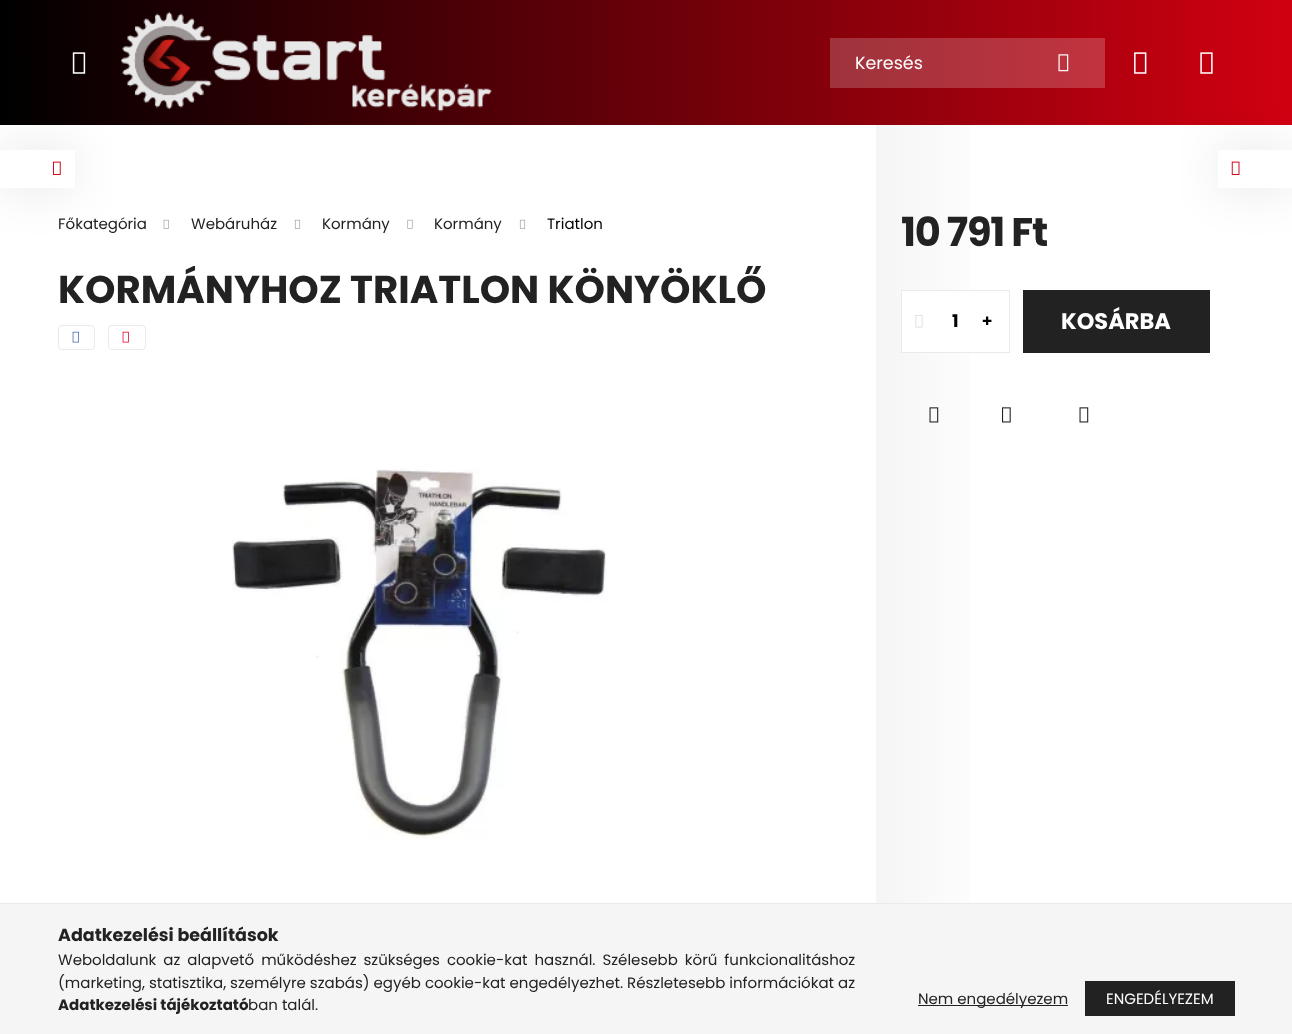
<?xml version="1.0" encoding="UTF-8"?>
<svg xmlns="http://www.w3.org/2000/svg" width="1292" height="1034">
    <defs>
        <linearGradient id="g1" gradientUnits="userSpaceOnUse" x1="0" y1="63" x2="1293" y2="62"><stop offset="0" stop-color="#000000"/><stop offset="1" stop-color="#D10011"/></linearGradient>
        <linearGradient id="g2" gradientUnits="userSpaceOnUse" x1="0" y1="63" x2="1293" y2="62"><stop offset="0" stop-color="#333333"/><stop offset="1" stop-color="#DA3341"/></linearGradient>
        <filter id="blur1" x="-50%" y="-200%" width="200%" height="500%"><feGaussianBlur stdDeviation="25"/></filter>
        <clipPath id="clip1"><rect x="58" y="266" width="708" height="47"/></clipPath>
        <linearGradient id="g3" gradientUnits="userSpaceOnUse" x1="876" y1="612" x2="1235" y2="612"><stop offset="0" stop-color="#F5F5F5"/><stop offset="0.35" stop-color="#FFFFFF"/><stop offset="1" stop-color="#FFFFFF"/></linearGradient>
        <linearGradient id="g4" gradientUnits="userSpaceOnUse" x1="648" y1="321" x2="1210" y2="321"><stop offset="0" stop-color="#000000"/><stop offset="0.33" stop-color="#D10011"/><stop offset="0.67" stop-color="#222222"/><stop offset="1" stop-color="#222222"/></linearGradient>
        <linearGradient id="g5" gradientUnits="userSpaceOnUse" x1="785" y1="999" x2="1235" y2="999"><stop offset="0" stop-color="#000000"/><stop offset="0.33" stop-color="#D10011"/><stop offset="0.67" stop-color="#222222"/><stop offset="1" stop-color="#222222"/></linearGradient>
    </defs>
    <rect width="100%" height="100%" fill="#FFFFFF"/>
    <rect x="0" y="0" width="1292" height="125" fill="url(#g1)"/>
    <rect x="830" y="38" width="275" height="50" fill="url(#g2)"/>
    <image x="72" y="52" width="14" height="22" href="img_01.png"/>
    <image x="121" y="12" width="371" height="100" href="img_02.png"/>
    <text x="855" y="69" font-family="Poppins" font-size="17.5" fill="#FFFFFF">Keresés</text>
    <image x="1058" y="54" width="11" height="18" href="img_03.png"/>
    <image x="1134" y="52" width="13" height="22" href="img_04.png"/>
    <image x="1200" y="52" width="13" height="22" href="img_05.png"/>
    <rect x="0" y="150" width="75" height="38" fill="#000000" fill-opacity="0.1" filter="url(#blur1)"/>
    <rect x="0" y="150" width="75" height="38" fill="#FFFFFF"/>
    <image x="53" y="161" width="8" height="14" href="img_06.png"/>
    <rect x="1218" y="150" width="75" height="38" fill="#000000" fill-opacity="0.1" filter="url(#blur1)"/>
    <rect x="1218" y="150" width="74" height="38" fill="#FFFFFF"/>
    <image x="1231" y="161" width="9" height="14" href="img_07.png"/>
    <text x="58" y="229" font-family="Poppins" font-size="15" fill="#222222">Főkategória</text>
    <image x="163" y="219" width="6" height="10" href="img_08.png"/>
    <text x="191" y="229" font-family="Poppins" font-size="15" fill="#222222">Webáruház</text>
    <image x="294" y="219" width="7" height="10" href="img_09.png"/>
    <text x="322" y="229" font-family="Poppins" font-size="15" fill="#222222">Kormány</text>
    <image x="407" y="219" width="6" height="10" href="img_10.png"/>
    <text x="434" y="229" font-family="Poppins" font-size="15" fill="#222222">Kormány</text>
    <image x="519" y="219" width="7" height="10" href="img_09.png"/>
    <text x="547" y="229" font-family="Poppins" font-size="15" fill="#000000">Triatlon</text>
    <g clip-path="url(#clip1)">
        <text x="58" y="303" font-family="Poppins" font-size="38.75" font-weight="700" fill="#222222">KORMÁNYHOZ TRIATLON KÖNYÖKLŐ</text>
    </g>
    <rect x="58.5" y="325.5" width="36" height="24" rx="3.5" fill="none" stroke="#EAEAEA"/>
    <image x="72" y="331" width="7" height="12" href="img_11.png"/>
    <rect x="108.5" y="325.5" width="37" height="24" rx="3.5" fill="none" stroke="#EAEAEA"/>
    <image x="122" y="331" width="7" height="12" href="img_12.png"/>
    <image x="232" y="469" width="375" height="370" href="img_13.png"/>
    <rect x="876" y="125" width="94" height="778" fill="url(#g3)"/>
    <text x="901" y="246" font-family="Poppins" font-size="40" font-weight="700" letter-spacing="-1.25" fill="#222222">10 791 Ft</text>
    <rect x="902" y="291" width="68" height="61" fill="#FFFFFF"/>
    <rect x="901.5" y="290.5" width="108" height="62" fill="none" stroke="#EAEAEA"/>
    <image x="915" y="315" width="8" height="13" href="img_14.png"/>
    <text x="952" y="327" font-family="Poppins" font-size="17.5" font-weight="700" fill="#000000">1</text>
    <text x="982" y="327" font-family="Noto Sans" font-size="17.5" font-weight="900" fill="#000000">+</text>
    <rect x="1023" y="290" width="187" height="63" fill="url(#g4)"/>
    <text x="1061" y="329" font-family="Poppins" font-size="22.5" font-weight="700" fill="#FFFFFF">KOSÁRBA</text>
    <image x="929" y="407" width="10" height="16" href="img_15.png"/>
    <image x="1002" y="407" width="9" height="16" href="img_16.png"/>
    <image x="1079" y="407" width="10" height="16" href="img_17.png"/>
    <rect x="0" y="904" width="1292" height="130" fill="#F5F5F5"/>
    <rect x="0" y="903" width="1292" height="1" fill="#EAEAEA"/>
    <text x="58" y="941" font-family="Poppins" font-size="17.5" font-weight="700" fill="#222222">Adatkezelési beállítások</text>
    <text font-family="Poppins" font-size="15" fill="#222222">
        <tspan x="58" y="965" word-spacing="3">Weboldalunk az alapvető működéshez szükséges cookie-kat használ. Szélesebb körű funkcionalitáshoz</tspan>
        <tspan x="58" y="988">(marketing, statisztika, személyre szabás) egyéb cookie-kat engedélyezhet. Részletesebb információkat az</tspan>
    </text>
    <text x="58" y="1010" font-family="Poppins" font-size="15" font-weight="700" fill="#222222">Adatkezelési tájékoztató</text>
    <text x="248" y="1010" font-family="Poppins" font-size="15" fill="#222222">ban talál.</text>
    <rect x="918" y="1005" width="150" height="1" fill="#222222"/>
    <text x="918" y="1004" font-family="Poppins" font-size="15" fill="#222222">Nem engedélyezem</text>
    <rect x="1085" y="981" width="150" height="35" fill="url(#g5)"/>
    <text x="1106" y="1004" font-family="Poppins" font-size="15" fill="#FFFFFF">ENGEDÉLYEZEM</text>
</svg>
